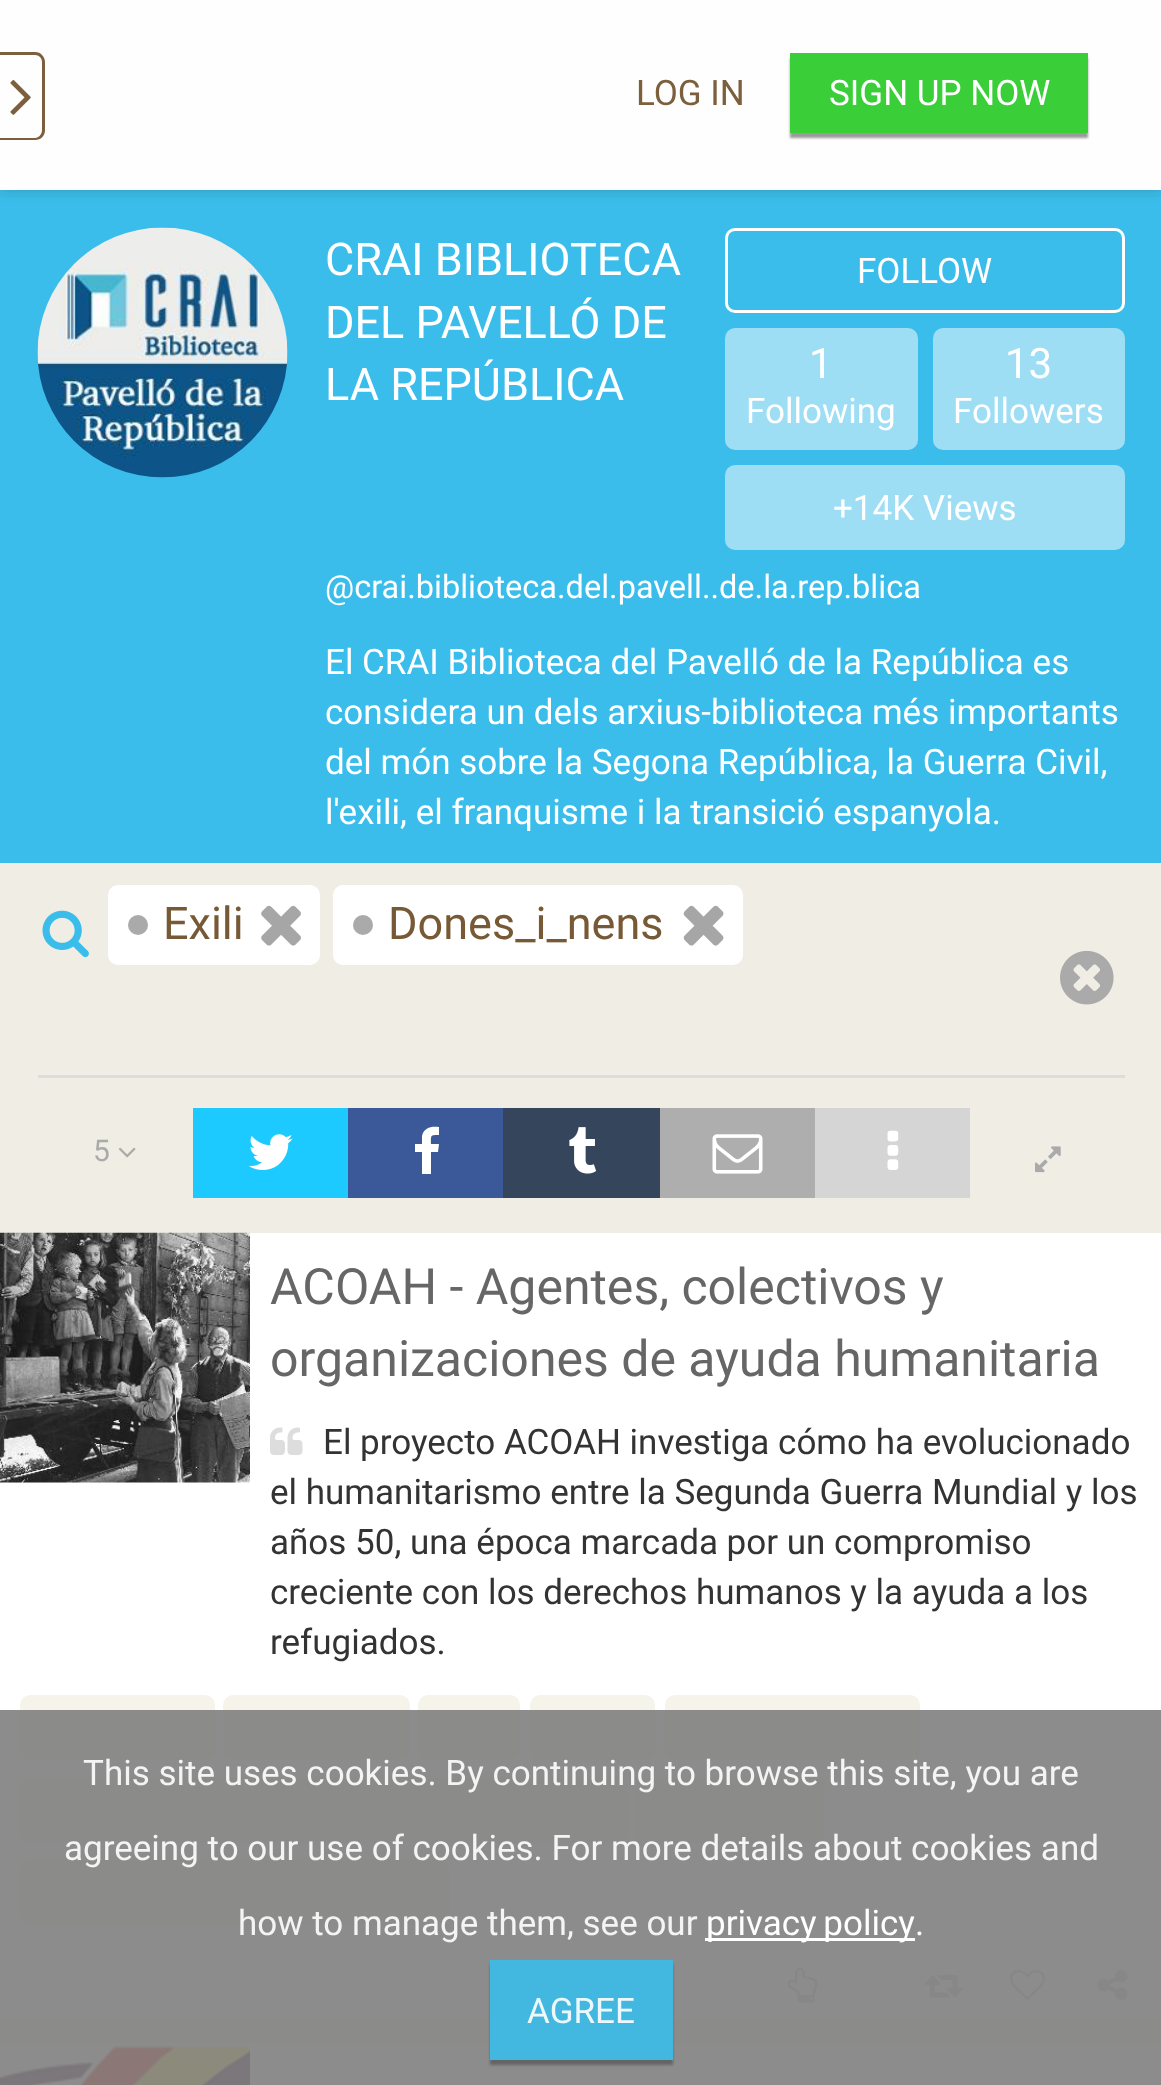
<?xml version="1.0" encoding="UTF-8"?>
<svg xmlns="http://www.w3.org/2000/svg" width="1161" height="2085">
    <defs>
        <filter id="blur1" x="-50%" y="-200%" width="200%" height="500%"><feGaussianBlur stdDeviation="6"/></filter>
        <filter id="blur2" x="-50%" y="-200%" width="200%" height="500%"><feGaussianBlur stdDeviation="1"/></filter>
        <clipPath id="clip1"><path d="M 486 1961 H 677 V 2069 H 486 Z M 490 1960 H 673 V 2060 H 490 Z" clip-rule="evenodd"/></clipPath>
    </defs>
    <rect width="100%" height="100%" fill="#F0EEE4"/>
    <rect x="0" y="190" width="1161" height="673" fill="#3ABDEA"/>
    <rect x="0" y="0" width="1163" height="190" fill="#323839" fill-opacity="0.3" filter="url(#blur1)"/>
    <rect x="0" y="0" width="1161" height="190" fill="#FEFEFE"/>
    <path d="M 0 52 H 35 C 41 52 45 57 45 62 V 130 C 45 136 41 140 35 140 H 0 Z M 0 55 H 35 C 39 55 42 58 42 62 V 130 C 42 134 39 138 35 138 H 0 Z" fill="#7C5F3D" fill-rule="evenodd"/>
    <image x="10" y="80" width="21" height="35" href="img_01.png"/>
    <text x="636" y="105" font-family="Roboto" font-size="35" fill="#7C5F3D">LOG IN</text>
    <rect x="790" y="58" width="298" height="80" fill="#3A3A39" fill-opacity="0.5" filter="url(#blur2)"/>
    <rect x="790" y="53" width="298" height="80" fill="#3ACE39"/>
    <text x="829" y="105" font-family="Roboto" font-size="35" fill="#FFFFFF">SIGN UP NOW</text>
    <image x="37" y="227" width="251" height="251" href="img_02.png"/>
    <text font-family="Roboto" font-size="45" fill="#FFFFFF">
        <tspan x="325" y="275">CRAI BIBLIOTECA</tspan>
        <tspan x="325" y="338">DEL PAVELLÓ DE</tspan>
        <tspan x="325" y="400">LA REPÚBLICA</tspan>
    </text>
    <rect x="726.5" y="229.5" width="397" height="82" rx="8.5" fill="none" stroke="#FFFFFF" stroke-width="3"/>
    <text x="857" y="283" font-family="Roboto" font-size="35" fill="#FFFFFF">FOLLOW</text>
    <rect x="725" y="328" width="193" height="122" rx="10" fill="#9DDEF5"/>
    <text x="809" y="378" font-family="Roboto" font-size="42" fill="#FFFFFF">1</text>
    <text x="746" y="423" font-family="Roboto" font-size="35" fill="#FFFFFF">Following</text>
    <rect x="933" y="328" width="192" height="122" rx="10" fill="#9DDEF5"/>
    <text x="1005" y="378" font-family="Roboto" font-size="42" fill="#FFFFFF">13</text>
    <text x="953" y="423" font-family="Roboto" font-size="35" fill="#FFFFFF">Followers</text>
    <rect x="725" y="465" width="400" height="85" rx="10" fill="#9DDEF5"/>
    <text x="833" y="520" font-family="Roboto" font-size="35" fill="#FFFFFF">+14K Views</text>
    <text x="325" y="598" font-family="Roboto" font-size="32.5" fill="#FFFFFF">@crai.biblioteca.del.pavell..de.la.rep.blica</text>
    <text font-family="Roboto" font-size="35" fill="#FFFFFF">
        <tspan x="325" y="674">El CRAI Biblioteca del Pavelló de la República es</tspan>
        <tspan x="325" y="724">considera un dels arxius-biblioteca més importants</tspan>
        <tspan x="325" y="774">del món sobre la Segona República, la Guerra Civil,</tspan>
        <tspan x="325" y="824">l'exili, el franquisme i la transició espanyola.</tspan>
    </text>
    <image x="42" y="910" width="47" height="48" href="img_03.png"/>
    <rect x="38" y="1075" width="1087" height="3" fill="#DDDDDD"/>
    <rect x="108" y="885" width="212" height="80" rx="10" fill="#FFFFFF"/>
    <circle cx="138" cy="925" r="10" fill="#AAAAAA"/>
    <text x="163" y="939" font-family="Roboto" font-size="45" fill="#775936">Exili</text>
    <image x="261" y="905" width="40" height="41" href="img_04.png"/>
    <rect x="333" y="885" width="410" height="80" rx="10" fill="#FFFFFF"/>
    <circle cx="363" cy="925" r="10" fill="#AAAAAA"/>
    <text x="388" y="939" font-family="Roboto" font-size="45" fill="#775936">Dones_i_nens</text>
    <image x="683" y="905" width="41" height="41" href="img_05.png"/>
    <image x="1060" y="950" width="54" height="55" href="img_06.png"/>
    <text x="93" y="1161" font-family="Roboto" font-size="30" fill="#AAAAAA">5</text>
    <image x="118" y="1147" width="18" height="11" href="img_07.png"/>
    <rect x="193" y="1108" width="155" height="90" fill="#1DCAFF"/>
    <image x="249" y="1134" width="44" height="36" href="img_08.png"/>
    <rect x="348" y="1108" width="155" height="90" fill="#3B5998"/>
    <path d="M 439 1127 V 1135 C 430 1135 431 1135 431 1144 H 439 L 438 1152 H 431 V 1174 H 422 V 1152 H 415 V 1144 H 422 V 1136 C 424 1127 432 1126 439 1127 Z" fill="#FFFFFF"/>
    <rect x="503" y="1108" width="157" height="90" fill="#35465C"/>
    <image x="569" y="1127" width="27" height="47" href="img_09.png"/>
    <rect x="660" y="1108" width="155" height="90" fill="#AEAEAE"/>
    <image x="712" y="1134" width="51" height="40" href="img_10.png"/>
    <rect x="815" y="1108" width="155" height="90" fill="#D5D5D5"/>
    <image x="887" y="1130" width="12" height="40" href="img_11.png"/>
    <image x="1035" y="1146" width="26" height="27" href="img_12.png"/>
    <rect x="0" y="1233" width="1161" height="785" fill="#FFFFFF"/>
    <image x="0" y="1232" width="250" height="251" href="img_13.png"/>
    <text font-family="Roboto" font-size="50" fill="#666666">
        <tspan x="270" y="1304">ACOAH - Agentes, colectivos y</tspan>
        <tspan x="270" y="1376">organizaciones de ayuda humanitaria</tspan>
    </text>
    <image x="270" y="1427" width="33" height="28" href="img_14.png"/>
    <text x="323" y="1454" font-family="Roboto" font-size="35" fill="#333333">El proyecto ACOAH investiga cómo ha evolucionado</text>
    <text font-family="Roboto" font-size="35" fill="#333333">
        <tspan x="270" y="1504">el humanitarismo entre la Segunda Guerra Mundial y los</tspan>
        <tspan x="270" y="1554">años 50, una época marcada por un compromiso</tspan>
        <tspan x="270" y="1604">creciente con los derechos humanos y la ayuda a los</tspan>
        <tspan x="270" y="1654">refugiados.</tspan>
    </text>
    <rect x="20" y="1695" width="195" height="65" rx="10" fill="#F6F4EA"/>
    <rect x="223" y="1695" width="187" height="65" rx="10" fill="#F6F4EA"/>
    <rect x="418" y="1695" width="102" height="65" rx="10" fill="#F6F4EA"/>
    <rect x="530" y="1695" width="125" height="65" rx="10" fill="#F6F4EA"/>
    <rect x="665" y="1695" width="255" height="65" rx="10" fill="#F6F4EA"/>
    <rect x="20" y="1778" width="608" height="65" rx="10" fill="#F6F4EA"/>
    <rect x="635" y="1778" width="190" height="65" rx="10" fill="#F6F4EA"/>
    <rect x="20" y="1860" width="430" height="65" rx="10" fill="#F6F4EA"/>
    <image x="787" y="1967" width="31" height="36" href="img_15.png"/>
    <image x="925" y="1975" width="38" height="23" href="img_16.png"/>
    <image x="1010" y="1970" width="35" height="30" href="img_17.png"/>
    <image x="1097" y="1970" width="31" height="30" href="img_18.png"/>
    <rect x="250" y="2043" width="911" height="42" fill="#FFFFFF"/>
    <image x="0" y="2042" width="250" height="43" href="img_19.png"/>
    <rect x="0" y="1710" width="1161" height="375" fill="#808080" fill-opacity="0.9"/>
    <text x="83" y="1785" font-family="Roboto" font-size="35" fill="#F4F4F4">This site uses cookies. By continuing to browse this site, you are</text>
    <text x="64" y="1860" font-family="Roboto" font-size="35" fill="#F4F4F4">agreeing to our use of cookies. For more details about cookies and</text>
    <text x="238" y="1935" font-family="Roboto" font-size="35" fill="#F4F4F4">how to manage them, see our</text>
    <rect x="705" y="1938" width="210" height="3" fill="#FFFFFF"/>
    <text x="706" y="1935" word-spacing="-2" font-family="Roboto" font-size="35" fill="#FFFFFF">privacy policy</text>
    <text x="915" y="1935" font-family="Roboto" font-size="35" fill="#FFFFFF">.</text>
    <g clip-path="url(#clip1)">
        <rect x="490" y="1965" width="183" height="100" fill="#323232" fill-opacity="0.45" filter="url(#blur2)"/>
    </g>
    <rect x="490" y="1960" width="183" height="100" fill="#3ABDEA" fill-opacity="0.9"/>
    <text x="527" y="2023" font-family="Roboto" font-size="35" fill="#ECF8FC">AGREE</text>
</svg>
